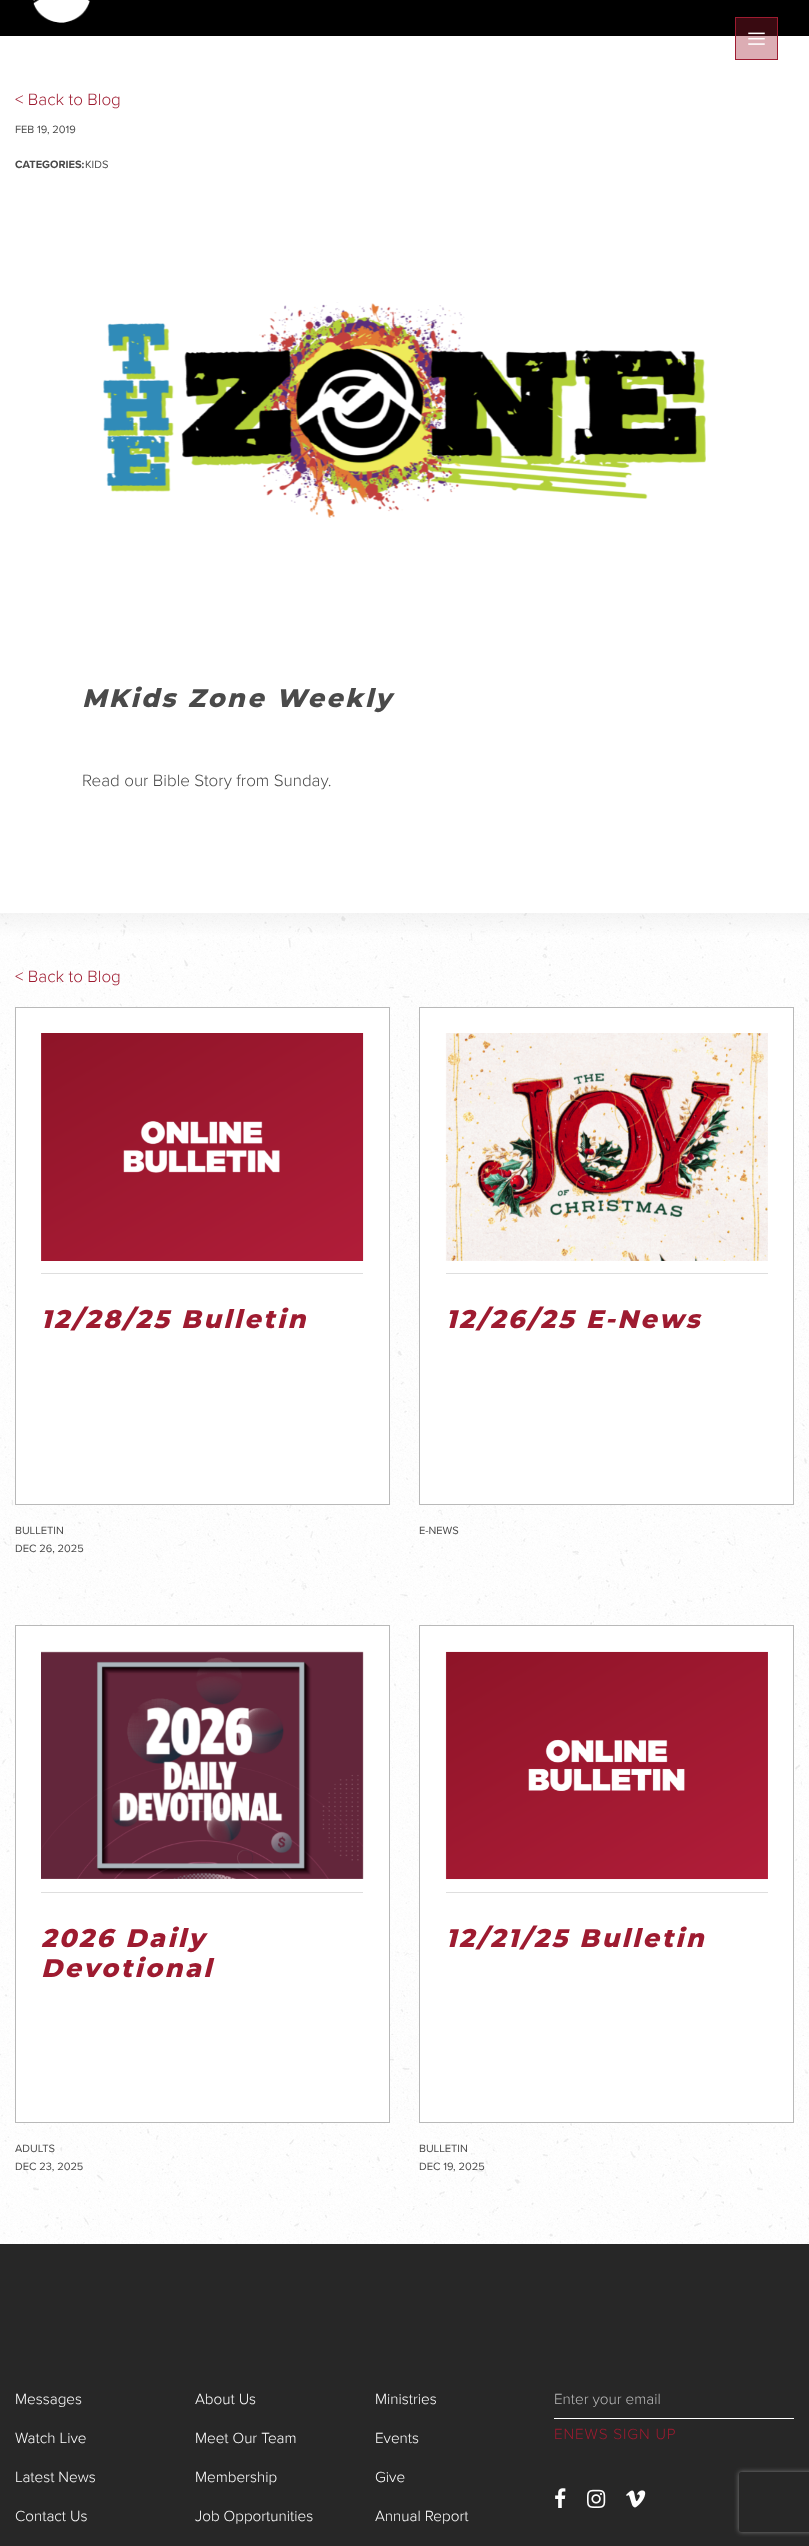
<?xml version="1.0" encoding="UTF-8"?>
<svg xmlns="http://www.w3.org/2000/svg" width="809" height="2546">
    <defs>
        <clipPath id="clip1"><path d="M 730 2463 H 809 V 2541 H 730 Z M 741 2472 H 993 C 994 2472 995 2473 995 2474 V 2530 C 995 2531 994 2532 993 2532 H 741 C 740 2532 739 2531 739 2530 V 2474 C 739 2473 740 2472 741 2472 Z" clip-rule="evenodd"/></clipPath>
        <filter id="blur1" x="-50%" y="-200%" width="200%" height="500%"><feGaussianBlur stdDeviation="2.5"/></filter>
    </defs>
    <rect width="100%" height="100%" fill="#FFFFFF"/>
    <rect x="736" y="36" width="41" height="23" fill="#DCADB4"/>
    <rect x="0" y="0" width="809" height="36" fill="#000000"/>
    <rect x="736" y="18" width="41" height="18" fill="#390A11"/>
    <image x="33" y="0" width="57" height="23" href="img_01.png"/>
    <rect x="735.5" y="17.5" width="42" height="42" fill="none" stroke="#9E1B30"/>
    <image x="748" y="32" width="17" height="13" href="img_02.png"/>
    <text x="15" y="105" font-family="Proxima Nova" font-size="17" font-weight="300" fill="#9E1B30">&lt; Back to Blog</text>
    <text x="15" y="133" font-family="Proxima Nova" font-size="11" fill="#4A4A4A">FEB 19, 2019</text>
    <text x="15" y="168" font-family="Proxima Nova" font-size="11" font-weight="700" fill="#4A4A4A">CATEGORIES:</text>
    <text x="85" y="168" font-family="Proxima Nova" font-size="11" fill="#4A4A4A">KIDS</text>
    <image x="103" y="302" width="603" height="216" href="img_03.png"/>
    <text x="82" y="707" font-family="Montserrat" font-size="25.5" font-weight="100" font-style="italic" letter-spacing="2.5" fill="#4A4A4A">MKids Zone Weekly</text>
    <text x="82" y="786" font-family="Proxima Nova" font-size="17" font-weight="300" fill="#4A4A4A">Read our Bible Story from Sunday.</text>
    <image x="0" y="913" width="809" height="1331" href="img_04.png"/>
    <text x="15" y="982" font-family="Proxima Nova" font-size="17" font-weight="300" fill="#9E1B30">&lt; Back to Blog</text>
    <rect x="15.5" y="1007.5" width="374" height="497" fill="#FFFFFF" stroke="#B9B9B9"/>
    <image x="41" y="1033" width="323" height="228" href="img_05.png"/>
    <rect x="41" y="1273" width="322" height="1" fill="#DEDEDE"/>
    <text x="41" y="1328" font-family="Montserrat" font-size="25.5" font-weight="100" font-style="italic" letter-spacing="2.5" fill="#9E1B30">12/28/25 Bulletin</text>
    <text font-family="Proxima Nova" font-size="11" fill="#4A4A4A">
        <tspan x="15" y="1534">BULLETIN</tspan>
        <tspan x="15" y="1552">DEC 26, 2025</tspan>
    </text>
    <rect x="419.5" y="1007.5" width="374" height="497" fill="#FFFFFF" stroke="#B9B9B9"/>
    <image x="445" y="1033" width="323" height="228" href="img_06.png"/>
    <rect x="446" y="1273" width="322" height="1" fill="#DEDEDE"/>
    <text x="446" y="1328" font-family="Montserrat" font-size="25.5" font-weight="100" font-style="italic" letter-spacing="2.5" fill="#9E1B30">12/26/25 E-News</text>
    <text x="419" y="1534" font-family="Proxima Nova" font-size="11" fill="#4A4A4A">E-NEWS</text>
    <rect x="15.5" y="1625.5" width="374" height="497" fill="#FFFFFF" stroke="#B9B9B9"/>
    <image x="41" y="1651" width="323" height="228" href="img_07.png"/>
    <rect x="41" y="1892" width="322" height="1" fill="#DEDEDE"/>
    <text font-family="Montserrat" font-size="25.5" font-weight="100" font-style="italic" letter-spacing="2.5" fill="#9E1B30">
        <tspan x="41" y="1947">2026 Daily</tspan>
        <tspan x="41" y="1977">Devotional</tspan>
    </text>
    <text font-family="Proxima Nova" font-size="11" fill="#4A4A4A">
        <tspan x="15" y="2152">ADULTS</tspan>
        <tspan x="15" y="2170">DEC 23, 2025</tspan>
    </text>
    <rect x="419.5" y="1625.5" width="374" height="497" fill="#FFFFFF" stroke="#B9B9B9"/>
    <image x="445" y="1651" width="323" height="229" href="img_08.png"/>
    <rect x="446" y="1892" width="322" height="1" fill="#DEDEDE"/>
    <text x="446" y="1947" font-family="Montserrat" font-size="25.5" font-weight="100" font-style="italic" letter-spacing="2.5" fill="#9E1B30">12/21/25 Bulletin</text>
    <text font-family="Proxima Nova" font-size="11" fill="#4A4A4A">
        <tspan x="419" y="2152">BULLETIN</tspan>
        <tspan x="419" y="2170">DEC 19, 2025</tspan>
    </text>
    <rect x="0" y="2244" width="809" height="302" fill="#272727"/>
    <text x="15" y="2404" font-family="Proxima Nova" font-size="15.25" font-weight="300" fill="#FFFFFF">Messages</text>
    <text x="15" y="2443" font-family="Proxima Nova" font-size="15.25" font-weight="300" fill="#FFFFFF">Watch Live</text>
    <text x="15" y="2482" font-family="Proxima Nova" font-size="15.25" font-weight="300" fill="#FFFFFF">Latest News</text>
    <text x="15" y="2521" font-family="Proxima Nova" font-size="15.25" font-weight="300" fill="#FFFFFF">Contact Us</text>
    <text x="195" y="2404" font-family="Proxima Nova" font-size="15.25" font-weight="300" fill="#FFFFFF">About Us</text>
    <text x="195" y="2443" font-family="Proxima Nova" font-size="15.25" font-weight="300" fill="#FFFFFF">Meet Our Team</text>
    <text x="195" y="2482" font-family="Proxima Nova" font-size="15.25" font-weight="300" fill="#FFFFFF">Membership</text>
    <text x="195" y="2521" font-family="Proxima Nova" font-size="15.25" font-weight="300" fill="#FFFFFF">Job Opportunities</text>
    <text x="375" y="2404" font-family="Proxima Nova" font-size="15.25" font-weight="300" fill="#FFFFFF">Ministries</text>
    <text x="375" y="2443" font-family="Proxima Nova" font-size="15.25" font-weight="300" fill="#FFFFFF">Events</text>
    <text x="375" y="2482" font-family="Proxima Nova" font-size="15.25" font-weight="300" fill="#FFFFFF">Give</text>
    <text x="375" y="2521" font-family="Proxima Nova" font-size="15.25" font-weight="300" fill="#FFFFFF">Annual Report</text>
    <rect x="554" y="2418" width="240" height="1" fill="#FFFFFF"/>
    <text x="554" y="2404" font-family="Proxima Nova" font-size="15.25" font-weight="300" fill="#B9B9B9">Enter your email</text>
    <g clip-path="url(#clip1)">
        <rect x="739" y="2472" width="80" height="60" rx="2" fill="#808080" filter="url(#blur1)"/>
    </g>
    <text x="554" y="2439" font-family="Proxima Nova" font-size="15.25" font-weight="300" letter-spacing="0.9" fill="#9E1B30">ENEWS SIGN UP</text>
    <image x="555" y="2488" width="11" height="20" href="img_09.png"/>
    <image x="587" y="2489" width="19" height="19" href="img_10.png"/>
    <image x="626" y="2490" width="20" height="18" href="img_11.png"/>
</svg>
